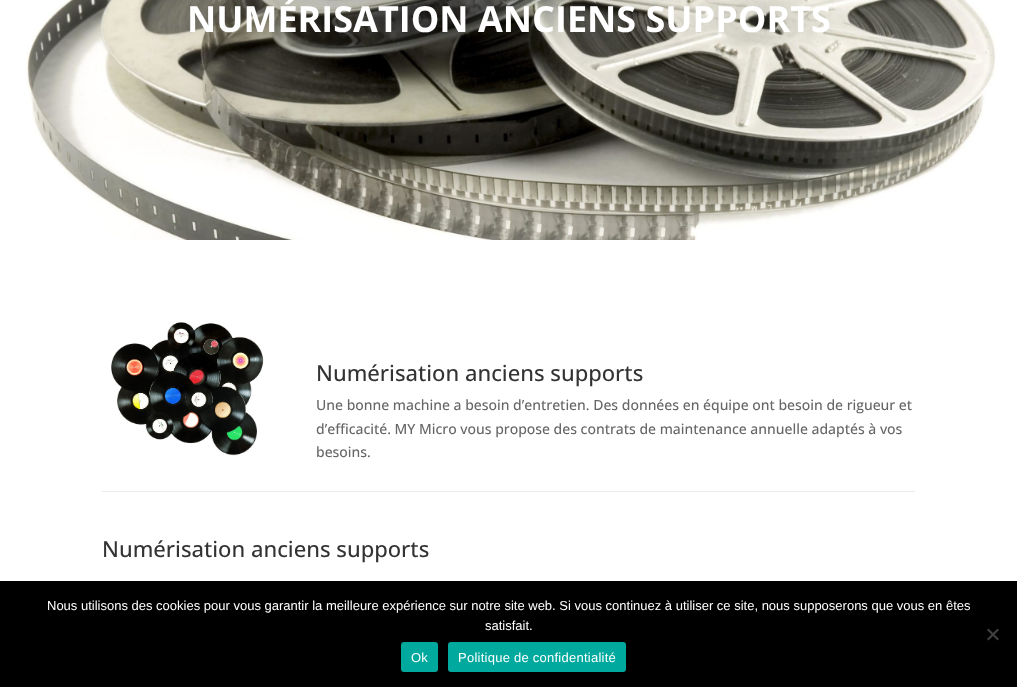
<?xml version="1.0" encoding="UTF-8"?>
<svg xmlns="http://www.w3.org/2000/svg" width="1017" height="687">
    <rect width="100%" height="100%" fill="#FFFFFF"/>
    <image x="26" y="0" width="970" height="240" href="img_01.png"/>
    <text x="187" y="32" font-family="Open Sans" font-size="36" font-weight="700" fill="#FFFFFF">NUMÉRISATION ANCIENS SUPPORTS</text>
    <rect x="102" y="491" width="813" height="1" fill="#EBECEC"/>
    <image x="111" y="322" width="153" height="134" href="img_02.png"/>
    <text x="316" y="381" font-family="Open Sans" font-size="22" font-weight="500" fill="#333333">Numérisation anciens supports</text>
    <text font-family="Open Sans" font-size="14" font-weight="500" fill="#666666">
        <tspan x="316" y="410">Une bonne machine a besoin d’entretien. Des données en équipe ont besoin de rigueur et</tspan>
        <tspan x="316" y="434">d’efficacité. MY Micro vous propose des contrats de maintenance annuelle adaptés à vos</tspan>
        <tspan x="316" y="457">besoins.</tspan>
    </text>
    <text x="102" y="557" font-family="Open Sans" font-size="22" font-weight="500" fill="#333333">Numérisation anciens supports</text>
    <rect x="0" y="581" width="1017" height="106" fill="#000000"/>
    <text x="47" y="610" font-family="Liberation Sans" font-size="13" fill="#FFFFFF">Nous utilisons des cookies pour vous garantir la meilleure expérience sur notre site web. Si vous continuez à utiliser ce site, nous supposerons que vous en êtes</text>
    <text x="485" y="630" font-family="Liberation Sans" font-size="13" fill="#FFFFFF">satisfait.</text>
    <path d="M 997.5 628.5 L 999 630 L 988.5 640.5 L 987 639 Z" fill="#404040"/>
    <path d="M 987 630 L 988.5 628.5 L 999 639 L 997.5 640.5 Z" fill="#404040"/>
    <rect x="401" y="642" width="37" height="30" rx="3" fill="#00A99D"/>
    <text x="411" y="662" font-family="Liberation Sans" font-size="13" letter-spacing="0.25" fill="#FFFFFF">Ok</text>
    <rect x="448" y="642" width="178" height="30" rx="3" fill="#00A99D"/>
    <text x="458" y="662" font-family="Liberation Sans" font-size="13" letter-spacing="0.25" fill="#FFFFFF">Politique de confidentialité</text>
</svg>
